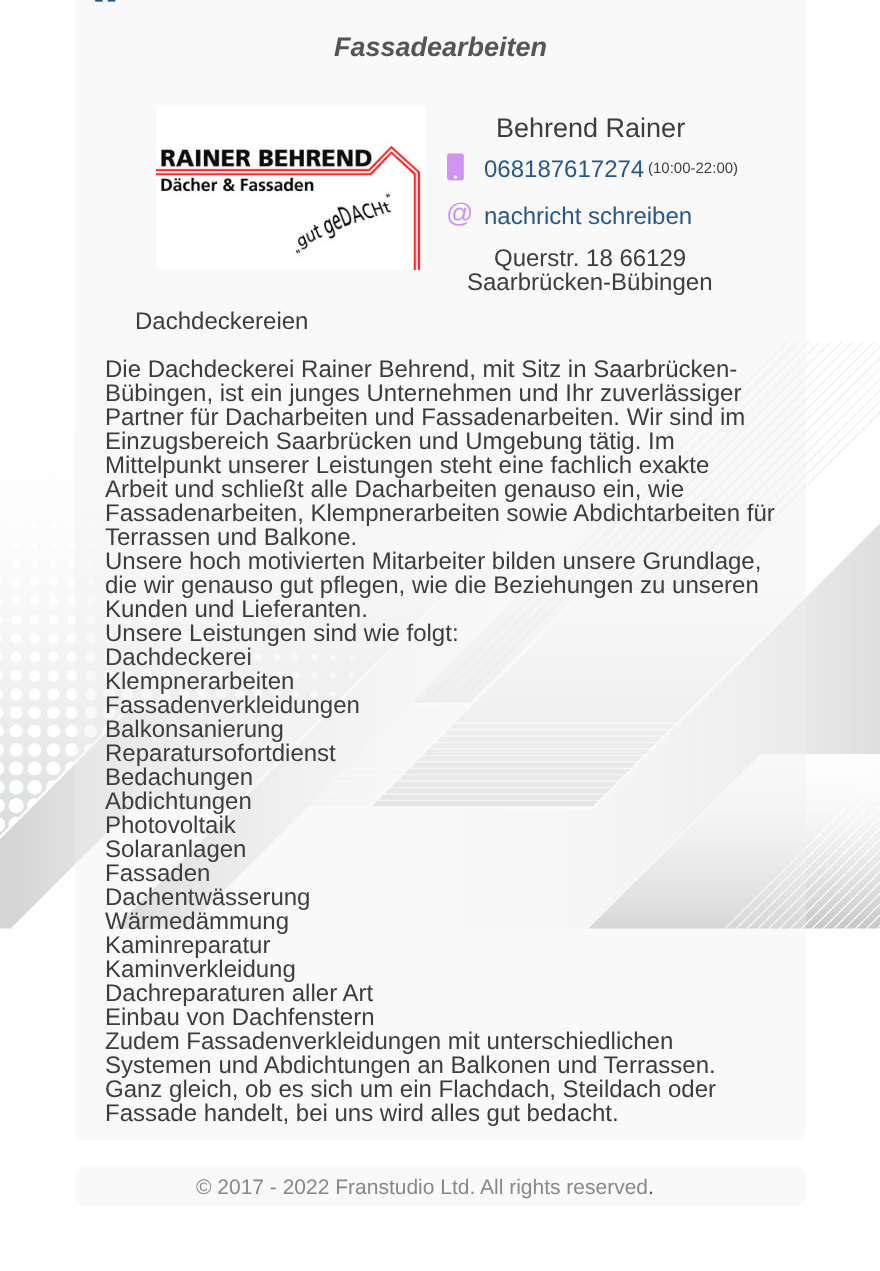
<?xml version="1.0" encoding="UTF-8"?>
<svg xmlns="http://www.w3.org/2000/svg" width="880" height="1271">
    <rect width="100%" height="100%" fill="#FFFFFF"/>
    <image x="0" y="342" width="880" height="587" href="img_01.png"/>
    <rect x="75" y="-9" width="731" height="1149" rx="9" fill="#EEEEEE" fill-opacity="0.38"/>
    <image x="95" y="0" width="21" height="2" href="img_02.png"/>
    <text x="334" y="56" font-family="Liberation Sans" font-size="27" font-weight="700" font-style="italic" fill="#555555">Fassadearbeiten</text>
    <image x="156" y="105" width="270" height="165" href="img_03.png"/>
    <text x="496" y="137" font-family="Liberation Sans" font-size="27" fill="#3D3D3D">Behrend Rainer</text>
    <image x="447" y="153" width="17" height="28" href="img_04.png"/>
    <text x="484" y="177" font-family="Liberation Sans" font-size="24" fill="#2A5885">068187617274</text>
    <text x="648" y="173" font-family="Liberation Sans" font-size="15" fill="#3D3D3D">(10:00-22:00)</text>
    <text x="446" y="222" font-family="Liberation Sans" font-size="27" fill="#CF94F2">@</text>
    <text x="484" y="224" font-family="Liberation Sans" font-size="24" fill="#2A5885">nachricht schreiben</text>
    <text x="494" y="266" font-family="Liberation Sans" font-size="24" fill="#3D3D3D">Querstr. 18 66129</text>
    <text x="467" y="290" font-family="Liberation Sans" font-size="24" fill="#3D3D3D">Saarbrücken-Bübingen</text>
    <text x="135" y="329" font-family="Liberation Sans" font-size="24" fill="#3D3D3D">Dachdeckereien</text>
    <text font-family="Liberation Sans" font-size="24" fill="#3D3D3D">
        <tspan x="105" y="377">Die Dachdeckerei Rainer Behrend, mit Sitz in Saarbrücken-</tspan>
        <tspan x="105" y="401">Bübingen, ist ein junges Unternehmen und Ihr zuverlässiger</tspan>
        <tspan x="105" y="425">Partner für Dacharbeiten und Fassadenarbeiten. Wir sind im</tspan>
        <tspan x="105" y="449">Einzugsbereich Saarbrücken und Umgebung tätig. Im</tspan>
        <tspan x="105" y="473">Mittelpunkt unserer Leistungen steht eine fachlich exakte</tspan>
        <tspan x="105" y="497">Arbeit und schließt alle Dacharbeiten genauso ein, wie</tspan>
        <tspan x="105" y="521">Fassadenarbeiten, Klempnerarbeiten sowie Abdichtarbeiten für</tspan>
        <tspan x="105" y="545">Terrassen und Balkone.</tspan>
        <tspan x="105" y="569">Unsere hoch motivierten Mitarbeiter bilden unsere Grundlage,</tspan>
        <tspan x="105" y="593">die wir genauso gut pflegen, wie die Beziehungen zu unseren</tspan>
        <tspan x="105" y="617">Kunden und Lieferanten.</tspan>
        <tspan x="105" y="641">Unsere Leistungen sind wie folgt:</tspan>
        <tspan x="105" y="665">Dachdeckerei</tspan>
        <tspan x="105" y="689">Klempnerarbeiten</tspan>
        <tspan x="105" y="713">Fassadenverkleidungen</tspan>
        <tspan x="105" y="737">Balkonsanierung</tspan>
        <tspan x="105" y="761">Reparatursofortdienst</tspan>
        <tspan x="105" y="785">Bedachungen</tspan>
        <tspan x="105" y="809">Abdichtungen</tspan>
        <tspan x="105" y="833">Photovoltaik</tspan>
        <tspan x="105" y="857">Solaranlagen</tspan>
        <tspan x="105" y="881">Fassaden</tspan>
        <tspan x="105" y="905">Dachentwässerung</tspan>
        <tspan x="105" y="929">Wärmedämmung</tspan>
        <tspan x="105" y="953">Kaminreparatur</tspan>
        <tspan x="105" y="977">Kaminverkleidung</tspan>
        <tspan x="105" y="1001">Dachreparaturen aller Art</tspan>
        <tspan x="105" y="1025">Einbau von Dachfenstern</tspan>
        <tspan x="105" y="1049">Zudem Fassadenverkleidungen mit unterschiedlichen</tspan>
        <tspan x="105" y="1073">Systemen und Abdichtungen an Balkonen und Terrassen.</tspan>
        <tspan x="105" y="1097">Ganz gleich, ob es sich um ein Flachdach, Steildach oder</tspan>
        <tspan x="105" y="1121">Fassade handelt, bei uns wird alles gut bedacht.</tspan>
    </text>
    <rect x="75" y="1167" width="731" height="39" rx="9" fill="#F9F9F9"/>
    <text x="196" y="1194" font-family="Liberation Sans" font-size="21" fill="#888888">© 2017 - 2022 Franstudio Ltd. All rights reserved</text>
    <text x="648" y="1194" font-family="Liberation Sans" font-size="21" fill="#2A5885">.</text>
</svg>
